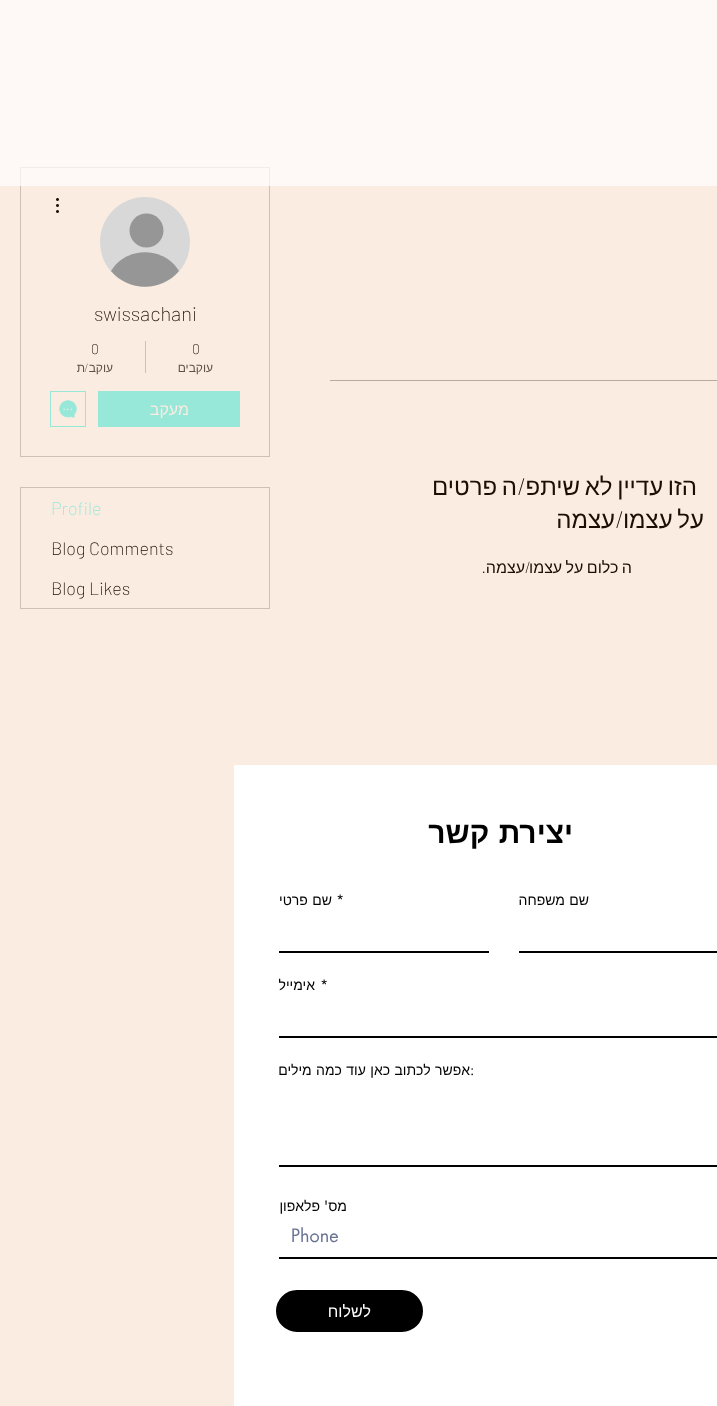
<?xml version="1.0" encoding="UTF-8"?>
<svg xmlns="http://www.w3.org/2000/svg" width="717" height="1406">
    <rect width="100%" height="100%" fill="#FAECE1"/>
    <rect x="20.5" y="167.5" width="249" height="289" fill="none" stroke="#CEC0B5"/>
    <rect x="0" y="0" width="717" height="186" fill="#FFFFFF" fill-opacity="0.7"/>
    <rect x="330" y="380" width="387" height="1" fill="#B8A99E"/>
    <text x="697" y="495" word-spacing="-2" font-family="Liberation Sans" font-size="24" direction="rtl" fill="#1D0E03">הזו עדיין לא שיתפ</text>
    <text x="525" y="495" font-family="Barlow" font-size="24" font-weight="200" direction="rtl" fill="#1D0E03">/</text>
    <text x="517" y="495" word-spacing="-2" font-family="Liberation Sans" font-size="24" direction="rtl" fill="#1D0E03">ה פרטים</text>
    <text x="704" y="528" word-spacing="-2" font-family="Liberation Sans" font-size="24" direction="rtl" fill="#1D0E03">על עצמו</text>
    <text x="623" y="528" font-family="Barlow" font-size="24" font-weight="200" direction="rtl" fill="#1D0E03">/</text>
    <text x="615" y="528" font-family="Liberation Sans" font-size="24" direction="rtl" fill="#1D0E03">עצמה</text>
    <text x="632" y="573" word-spacing="-1" font-family="Liberation Sans" font-size="16" direction="rtl" fill="#1D0E03">ה כלום על עצמו</text>
    <text x="530" y="573" font-family="Barlow" font-size="16" font-weight="200" direction="rtl" fill="#1D0E03">/</text>
    <text x="525" y="573" font-family="Liberation Sans" font-size="16" direction="rtl" fill="#1D0E03">עצמה</text>
    <text x="486" y="573" font-family="Barlow" font-size="16" font-weight="200" direction="rtl" fill="#1D0E03">.</text>
    <circle cx="145" cy="242" r="45" fill="#D8D8D8"/>
    <circle cx="146.5" cy="230.5" r="17" fill="#969696"/>
    <path d="M 179 271 C 161 292 129 292 111 271 C 126 246 164 246 179 271 Z" fill="#969696"/>
    <image x="56" y="198" width="3" height="15" href="img_01.png"/>
    <text x="94" y="321" font-family="Barlow" font-size="20" font-weight="200" fill="#1D0E03">swissachani</text>
    <text x="192" y="354" font-family="Barlow" font-size="14" font-weight="200" fill="#1D0E03">0</text>
    <text x="213" y="372" font-family="Liberation Sans" font-size="12" direction="rtl" fill="#5F5146">עוקבים</text>
    <rect x="145" y="341" width="1" height="32" fill="#CEC0B5"/>
    <text x="91" y="354" font-family="Barlow" font-size="14" font-weight="200" fill="#1D0E03">0</text>
    <text x="113" y="372" font-family="Liberation Sans" font-size="12" direction="rtl" fill="#5F5146">עוקב</text>
    <text x="88" y="372" font-family="Barlow" font-size="12" font-weight="200" direction="rtl" fill="#5F5146">/</text>
    <text x="85" y="372" font-family="Liberation Sans" font-size="12" direction="rtl" fill="#5F5146">ת</text>
    <rect x="98" y="391" width="142" height="36" fill="#97E8D9"/>
    <text x="189" y="415" font-family="Liberation Sans" font-size="16" direction="rtl" fill="#FAECE1">מעקב</text>
    <rect x="50.5" y="391.5" width="35" height="35" fill="none" stroke="#97E8D9"/>
    <image x="59" y="400" width="18" height="18" href="img_02.png"/>
    <rect x="20.5" y="487.5" width="249" height="121" fill="none" stroke="#CEC0B5"/>
    <text x="51" y="515" font-family="Barlow" font-size="18" font-weight="200" fill="#97E8D9">Profile</text>
    <text x="51" y="555" font-family="Barlow" font-size="18" font-weight="200" fill="#1D0E03">Blog Comments</text>
    <text x="51" y="595" font-family="Barlow" font-size="18" font-weight="200" fill="#1D0E03">Blog Likes</text>
    <rect x="234" y="765" width="483" height="641" fill="#FFFFFF"/>
    <text x="573" y="843" word-spacing="1" font-family="Liberation Sans" font-size="30" font-weight="700" direction="rtl" fill="#000000">יצירת קשר</text>
    <text x="589" y="905" word-spacing="0.5" font-family="Liberation Sans" font-size="14" direction="rtl" fill="#000000">שם משפחה</text>
    <rect x="519" y="951" width="198" height="2" fill="#000000"/>
    <text x="336" y="905" font-family="futura" font-size="14" fill="#000000">*</text>
    <text x="332" y="905" word-spacing="0.5" font-family="Liberation Sans" font-size="14" direction="rtl" fill="#000000">שם פרטי</text>
    <rect x="279" y="951" width="210" height="2" fill="#000000"/>
    <text x="320" y="990" font-family="futura" font-size="14" fill="#000000">*</text>
    <text x="315" y="990" font-family="Liberation Sans" font-size="14" direction="rtl" fill="#000000">אימייל</text>
    <rect x="279" y="1036" width="438" height="2" fill="#000000"/>
    <text x="470" y="1075" font-family="futura" font-size="14" fill="#000000">:</text>
    <text x="470" y="1075" word-spacing="0.5" font-family="Liberation Sans" font-size="14" direction="rtl" fill="#000000">אפשר לכתוב כאן עוד כמה מילים</text>
    <rect x="279" y="1165" width="438" height="2" fill="#000000"/>
    <text x="347" y="1211" font-family="Liberation Sans" font-size="14" direction="rtl" fill="#000000">מס</text>
    <text x="328" y="1211" font-family="futura" font-size="14" direction="rtl" fill="#000000">'</text>
    <text x="320" y="1211" font-family="Liberation Sans" font-size="14" direction="rtl" fill="#000000">פלאפון</text>
    <rect x="279" y="1257" width="438" height="2" fill="#000000"/>
    <text x="291" y="1242" font-family="futura" font-size="18" fill="#687393">Phone</text>
    <rect x="277" y="1291" width="145" height="40" rx="20" fill="#000000" stroke="#000000" stroke-width="2"/>
    <text x="371" y="1317" font-family="Liberation Sans" font-size="16" direction="rtl" fill="#FFFFFF">לשלוח</text>
</svg>
